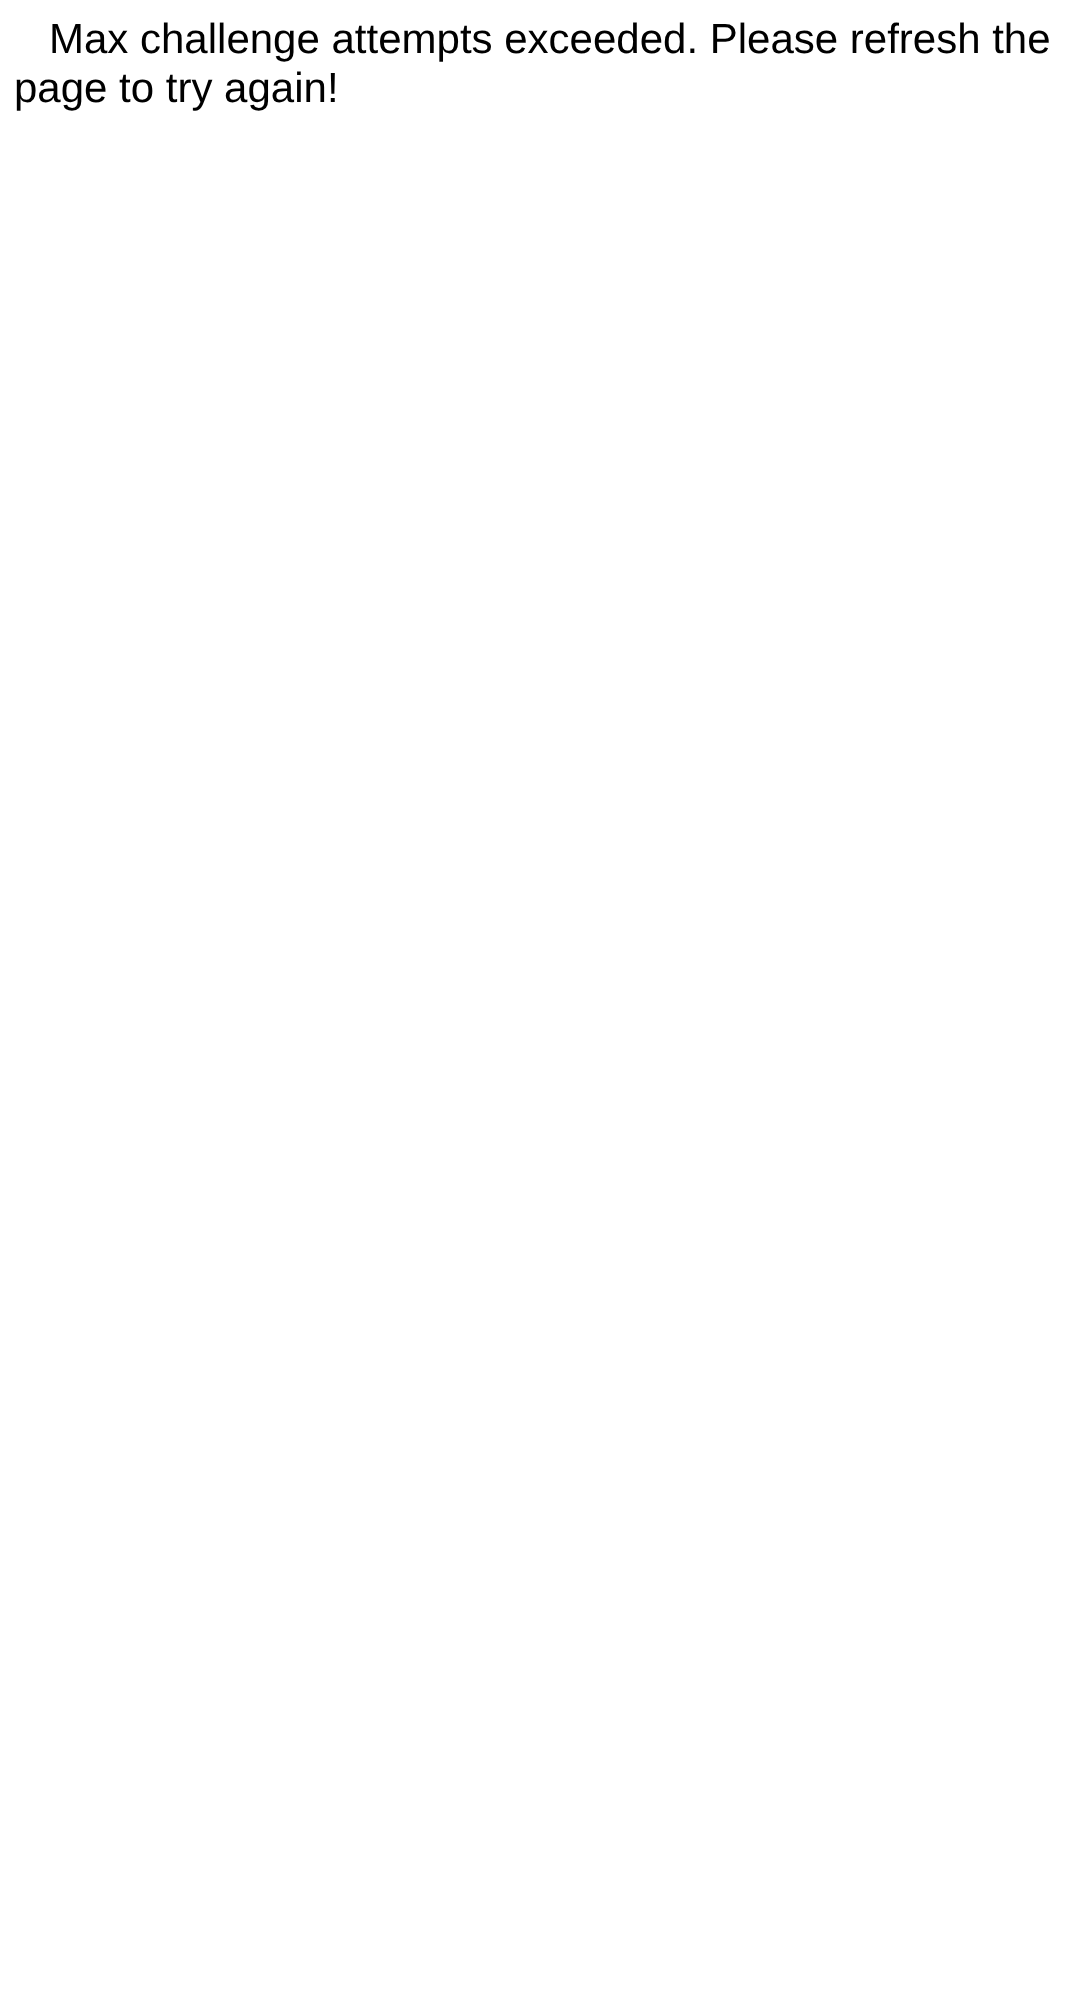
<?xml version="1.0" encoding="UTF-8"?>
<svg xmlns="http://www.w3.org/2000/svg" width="1076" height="2015">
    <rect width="100%" height="100%" fill="#FFFFFF"/>
    <text x="49" y="53" font-family="Liberation Sans" font-size="42" fill="#000000">Max challenge attempts exceeded. Please refresh the</text>
    <text x="14" y="102" font-family="Liberation Sans" font-size="42" fill="#000000">page to try again!</text>
</svg>
